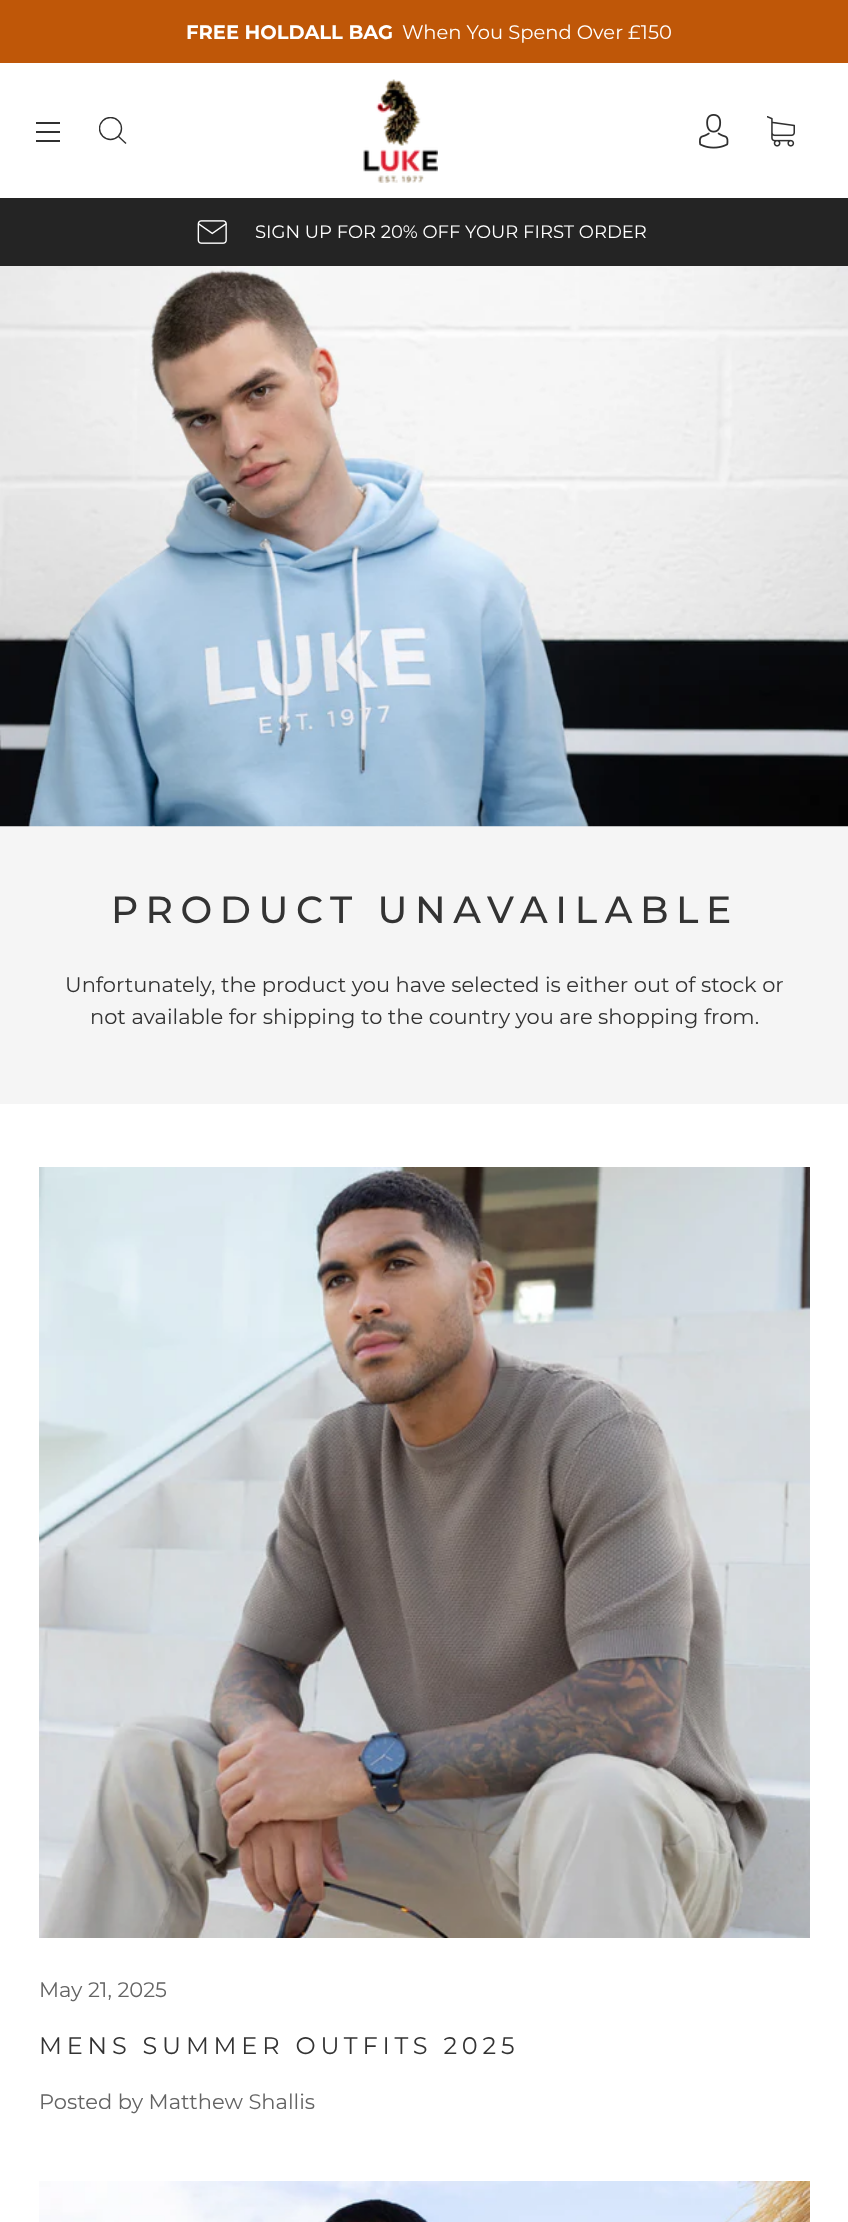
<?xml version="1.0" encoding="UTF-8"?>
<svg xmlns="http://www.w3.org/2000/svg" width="848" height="2222">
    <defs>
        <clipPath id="clip1"><rect x="99" y="117" width="27" height="27"/></clipPath>
    </defs>
    <rect width="100%" height="100%" fill="#FFFFFF"/>
    <rect x="0" y="0" width="848" height="63" fill="#BF5708"/>
    <text x="186" y="39" font-family="Montserrat" font-size="19.5" font-weight="700" fill="#FFFFFF">FREE HOLDALL BAG</text>
    <text x="402" y="39" font-family="Montserrat" font-size="19.5" fill="#FFFFFF">When You Spend Over £150</text>
    <rect x="36" y="122" width="24" height="2" fill="#303030"/>
    <rect x="36" y="131" width="24" height="2" fill="#303030"/>
    <rect x="36" y="140" width="24" height="2" fill="#303030"/>
    <g clip-path="url(#clip1)">
        <circle cx="110.5" cy="128.5" r="11" fill="none" stroke="#303030" stroke-width="1.4"/>
    </g>
    <path d="M 118 136 L 126 143.5" fill="none" stroke="#303030" stroke-width="1.4"/>
    <image x="363" y="79" width="75" height="104" href="img_01.png"/>
    <image x="699" y="114" width="30" height="35" href="img_02.png"/>
    <image x="767" y="116" width="28" height="31" href="img_03.png"/>
    <rect x="0" y="198" width="848" height="68" fill="#242424"/>
    <image x="197" y="220" width="30" height="24" href="img_04.png"/>
    <text x="255" y="238" font-family="Montserrat" font-size="18" fill="#FFFFFF">SIGN UP FOR 20% OFF YOUR FIRST ORDER</text>
    <rect x="0" y="826" width="848" height="278" fill="#F5F5F5"/>
    <image x="0" y="266" width="848" height="561" href="img_05.png"/>
    <text x="111" y="923" font-family="Montserrat" font-size="37.75" font-weight="500" letter-spacing="7.6" fill="#333333">PRODUCT UNAVAILABLE</text>
    <text x="65" y="992" font-family="Montserrat" font-size="21" fill="#333333">Unfortunately, the product you have selected is either out of stock or</text>
    <text x="90" y="1024" font-family="Montserrat" font-size="21" fill="#333333">not available for shipping to the country you are shopping from.</text>
    <image x="39" y="1167" width="771" height="771" href="img_06.png"/>
    <text x="39" y="1997" font-family="Montserrat" font-size="21" fill="#646464">May 21, 2025</text>
    <text x="39" y="2054" font-family="Montserrat" font-size="24" letter-spacing="4.8" fill="#333333">MENS SUMMER OUTFITS 2025</text>
    <text x="39" y="2109" font-family="Montserrat" font-size="21" fill="#646464">Posted by Matthew Shallis</text>
    <image x="39" y="2181" width="771" height="41" href="img_07.png"/>
</svg>
